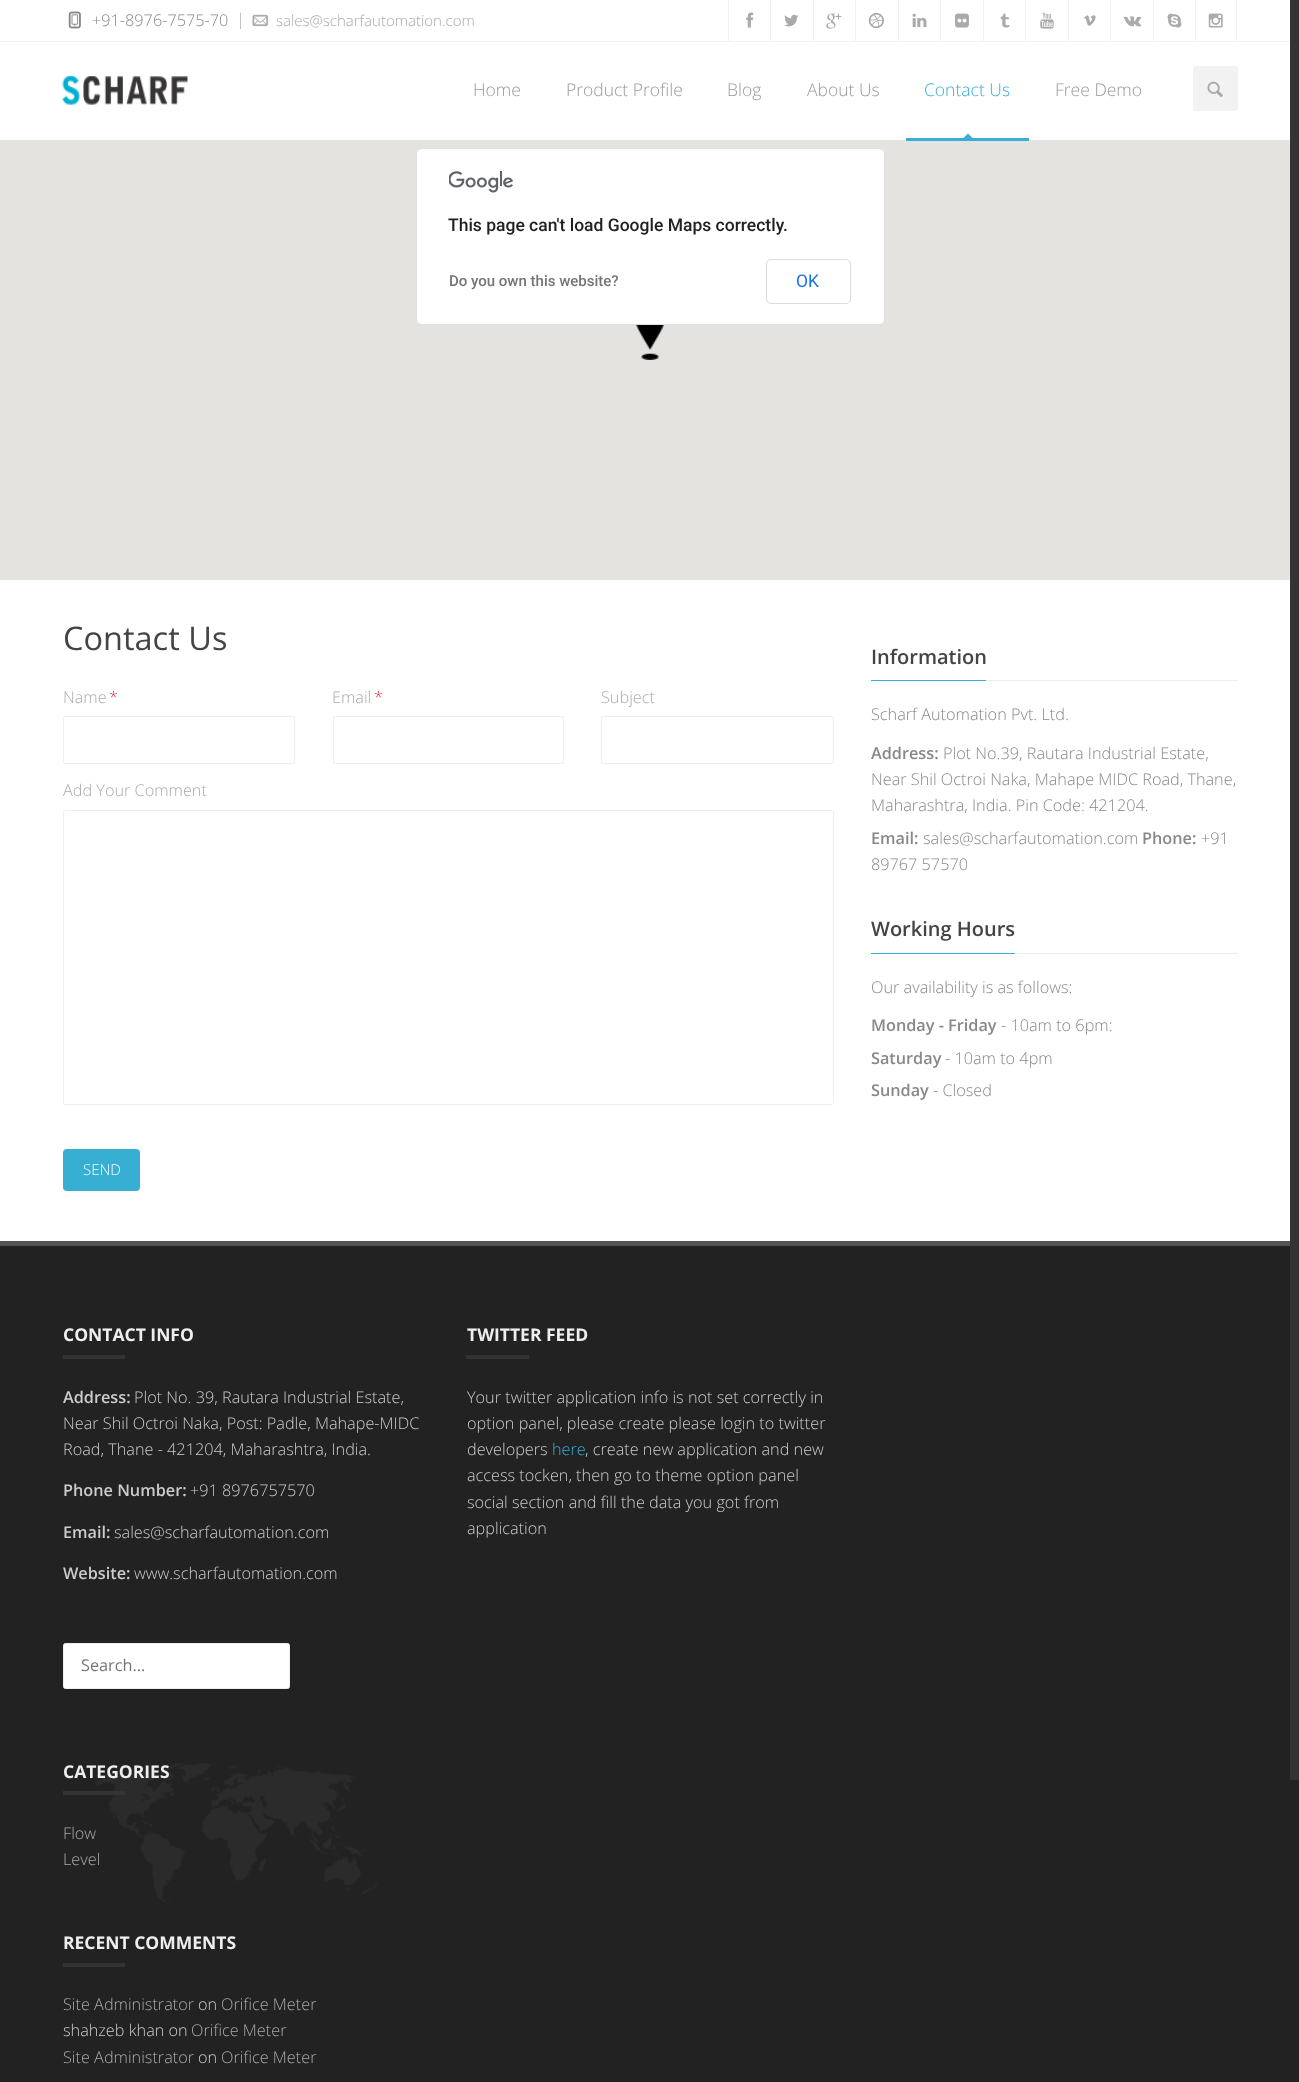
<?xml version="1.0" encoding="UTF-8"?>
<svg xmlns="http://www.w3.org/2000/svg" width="1299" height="2082">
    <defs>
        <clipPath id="clip1"><rect x="906" y="43" width="123" height="95"/></clipPath>
    </defs>
    <rect width="100%" height="100%" fill="#FFFFFF"/>
    <rect x="0" y="41" width="1290" height="1" fill="#F2F2F2"/>
    <image x="68" y="11" width="13" height="18" href="img_01.png"/>
    <text x="92" y="26" font-family="Open Sans" font-size="16.25" font-weight="300" fill="#888888">+91-8976-7575-70</text>
    <text x="236" y="25" font-family="Open Sans" font-size="16.25" font-weight="300" fill="#AAAAAA">|</text>
    <image x="252" y="14" width="16" height="13" href="img_02.png"/>
    <text x="276" y="26" font-family="Open Sans" font-size="15" font-weight="300" fill="#AAAAAA">sales@scharfautomation.com</text>
    <rect x="728" y="0" width="1" height="41" fill="#F2F2F2"/>
    <image x="746" y="12" width="8" height="16" href="img_03.png"/>
    <rect x="770" y="0" width="1" height="41" fill="#F2F2F2"/>
    <image x="784" y="14" width="15" height="13" href="img_04.png"/>
    <rect x="813" y="0" width="1" height="41" fill="#F2F2F2"/>
    <image x="826" y="13" width="16" height="16" href="img_05.png"/>
    <rect x="855" y="0" width="1" height="41" fill="#F2F2F2"/>
    <image x="868" y="13" width="16" height="16" href="img_06.png"/>
    <rect x="898" y="0" width="1" height="41" fill="#F2F2F2"/>
    <image x="912" y="13" width="15" height="15" href="img_07.png"/>
    <rect x="940" y="0" width="1" height="41" fill="#F2F2F2"/>
    <image x="955" y="13" width="14" height="15" href="img_08.png"/>
    <rect x="983" y="0" width="1" height="41" fill="#F2F2F2"/>
    <image x="1000" y="13" width="10" height="15" href="img_09.png"/>
    <rect x="1025" y="0" width="1" height="41" fill="#F2F2F2"/>
    <image x="1040" y="12" width="14" height="17" href="img_10.png"/>
    <rect x="1068" y="0" width="1" height="41" fill="#F2F2F2"/>
    <image x="1083" y="15" width="13" height="11" href="img_11.png"/>
    <rect x="1110" y="0" width="1" height="41" fill="#F2F2F2"/>
    <image x="1123" y="16" width="19" height="11" href="img_12.png"/>
    <rect x="1153" y="0" width="1" height="41" fill="#F2F2F2"/>
    <image x="1167" y="13" width="15" height="15" href="img_13.png"/>
    <rect x="1236" y="0" width="1" height="41" fill="#F2F2F2"/>
    <rect x="1195" y="0" width="1" height="41" fill="#F2F2F2"/>
    <image x="1208" y="13" width="15" height="15" href="img_14.png"/>
    <image x="62" y="76" width="126" height="29" href="img_15.png"/>
    <text x="473" y="96" font-family="Open Sans" font-size="17.5" font-weight="300" fill="#999999">Home</text>
    <text x="566" y="96" font-family="Open Sans" font-size="17.5" font-weight="300" fill="#999999">Product Profile</text>
    <text x="727" y="96" font-family="Open Sans" font-size="17.5" font-weight="300" fill="#999999">Blog</text>
    <text x="807" y="96" font-family="Open Sans" font-size="17.5" font-weight="300" fill="#999999">About Us</text>
    <rect x="0" y="140" width="1290" height="1" fill="#E5E5E5"/>
    <rect x="906" y="138" width="123" height="3" fill="#37AFD3"/>
    <text x="924" y="96" font-family="Open Sans" font-size="17.5" font-weight="300" fill="#37AFD3">Contact Us</text>
    <g clip-path="url(#clip1)">
        <path d="M 968 133.5 L 972.5 138 L 968 142.5 L 963.5 138 Z" fill="#37AFD3"/>
    </g>
    <text x="1055" y="96" font-family="Open Sans" font-size="17.5" font-weight="300" fill="#999999">Free Demo</text>
    <rect x="1193" y="66" width="45" height="45" rx="2.5" fill="#F2F2F2"/>
    <image x="1207" y="81" width="16" height="16" href="img_16.png"/>
    <rect x="0" y="579" width="1290" height="1" fill="#E5E5E5"/>
    <rect x="0" y="141" width="1290" height="438" fill="#E5E3DF"/>
    <image x="636" y="325" width="28" height="35" href="img_17.png"/>
    <rect x="416" y="148" width="469" height="177" rx="6" fill="#FFFFFF"/>
    <rect x="416.5" y="148.5" width="468" height="176" rx="5.5" fill="none" stroke="#000000" stroke-opacity="0.12"/>
    <image x="449" y="171" width="64" height="22" href="img_18.png"/>
    <text x="448" y="231" font-family="Roboto" font-size="17.5" font-weight="500" fill="#212121">This page can't load Google Maps correctly.</text>
    <text x="449" y="286" font-family="Roboto" font-size="15" font-weight="500" fill="#757575">Do you own this website?</text>
    <rect x="766.5" y="259.5" width="84" height="44" rx="4.5" fill="none" stroke="#DADCE0"/>
    <text x="796" y="287" font-family="Roboto" font-size="17.5" fill="#1A73E8">OK</text>
    <text x="63" y="650" font-family="Open Sans" font-size="32.5" fill="#444444">Contact Us</text>
    <text x="63" y="703" font-family="Open Sans" font-size="16.25" font-weight="300" fill="#AAAAAA">Name</text>
    <text x="109" y="703" font-family="Open Sans" font-size="16.25" font-weight="300" fill="#ED2C3A">*</text>
    <rect x="63.5" y="716.5" width="231" height="47" rx="2" fill="none" stroke="#EEEEEE"/>
    <text x="332" y="703" font-family="Open Sans" font-size="16.25" font-weight="300" fill="#AAAAAA">Email</text>
    <text x="374" y="703" font-family="Open Sans" font-size="16.25" font-weight="300" fill="#ED2C3A">*</text>
    <rect x="333.5" y="716.5" width="230" height="47" rx="2" fill="none" stroke="#EEEEEE"/>
    <text x="601" y="703" font-family="Open Sans" font-size="16.25" font-weight="300" fill="#AAAAAA">Subject</text>
    <rect x="601.5" y="716.5" width="232" height="47" rx="2" fill="none" stroke="#EEEEEE"/>
    <text x="63" y="796" font-family="Open Sans" font-size="16.25" font-weight="300" fill="#AAAAAA">Add Your Comment</text>
    <rect x="63.5" y="810.5" width="770" height="294" rx="2" fill="none" stroke="#EEEEEE"/>
    <rect x="63" y="1149" width="77" height="42" rx="4" fill="#37AFD3"/>
    <text x="83" y="1175" font-family="Open Sans" font-size="15" font-weight="300" fill="#FFFFFF">SEND</text>
    <rect x="986" y="680" width="252" height="1" fill="#EEEEEE"/>
    <text x="871" y="664" font-family="Open Sans" font-size="20" font-weight="600" fill="#444444">Information</text>
    <rect x="871" y="680" width="115" height="1" fill="#37AFD3"/>
    <text x="871" y="720" font-family="Open Sans" font-size="16.25" font-weight="300" fill="#888888">Scharf Automation Pvt. Ltd.</text>
    <text x="871" y="759" font-family="Open Sans" font-size="16.25" font-weight="600" fill="#888888">Address:</text>
    <text x="943" y="759" font-family="Open Sans" font-size="16.25" font-weight="300" fill="#888888">Plot No.39, Rautara Industrial Estate,</text>
    <text font-family="Open Sans" font-size="16.25" font-weight="300" fill="#888888">
        <tspan x="871" y="785">Near Shil Octroi Naka, Mahape MIDC Road, Thane,</tspan>
        <tspan x="871" y="811">Maharashtra, India. Pin Code: 421204.</tspan>
    </text>
    <text x="871" y="844" font-family="Open Sans" font-size="16.25" font-weight="600" fill="#888888">Email:</text>
    <text x="923" y="844" font-family="Open Sans" font-size="16.25" font-weight="300" fill="#888888">sales@scharfautomation.com</text>
    <text x="1142" y="844" font-family="Open Sans" font-size="16.25" font-weight="600" fill="#888888">Phone:</text>
    <text x="1201" y="844" font-family="Open Sans" font-size="16.25" font-weight="300" fill="#888888">+91</text>
    <text x="871" y="870" font-family="Open Sans" font-size="16.25" font-weight="300" fill="#888888">89767 57570</text>
    <rect x="1015" y="953" width="223" height="1" fill="#EEEEEE"/>
    <text x="871" y="936" font-family="Open Sans" font-size="20" font-weight="600" fill="#444444">Working Hours</text>
    <rect x="871" y="953" width="144" height="1" fill="#37AFD3"/>
    <text x="871" y="993" font-family="Open Sans" font-size="16.25" font-weight="300" fill="#888888">Our availability is as follows:</text>
    <text x="871" y="1031" font-family="Open Sans" font-size="16.25" font-weight="600" fill="#888888">Monday - Friday</text>
    <text x="1001" y="1031" font-family="Open Sans" font-size="16.25" font-weight="300" fill="#888888">- 10am to 6pm:</text>
    <text x="871" y="1064" font-family="Open Sans" font-size="16.25" font-weight="600" fill="#888888">Saturday</text>
    <text x="945" y="1064" font-family="Open Sans" font-size="16.25" font-weight="300" fill="#888888">- 10am to 4pm</text>
    <text x="871" y="1096" font-family="Open Sans" font-size="16.25" font-weight="600" fill="#888888">Sunday</text>
    <text x="933" y="1096" font-family="Open Sans" font-size="16.25" font-weight="300" fill="#888888">- Closed</text>
    <rect x="0" y="1246" width="1299" height="836" fill="#222222"/>
    <rect x="0" y="1241" width="1290" height="5" fill="#555555"/>
    <image x="95" y="1763" width="292" height="139" href="img_19.png"/>
    <text x="63" y="1341" font-family="Open Sans" font-size="17.5" font-weight="700" fill="#EEEEEE">CONTACT INFO</text>
    <rect x="63" y="1355" width="62" height="4" fill="#333333"/>
    <text x="63" y="1403" font-family="Open Sans" font-size="16.25" font-weight="600" fill="#CCCCCC">Address:</text>
    <text x="134" y="1403" font-family="Open Sans" font-size="16.25" font-weight="300" fill="#CCCCCC">Plot No. 39, Rautara Industrial Estate,</text>
    <text font-family="Open Sans" font-size="16.25" font-weight="300" fill="#CCCCCC">
        <tspan x="63" y="1429">Near Shil Octroi Naka, Post: Padle, Mahape-MIDC</tspan>
        <tspan x="63" y="1455">Road, Thane - 421204, Maharashtra, India.</tspan>
    </text>
    <text x="63" y="1496" font-family="Open Sans" font-size="16.25" font-weight="600" fill="#CCCCCC">Phone Number:</text>
    <text x="190" y="1496" font-family="Open Sans" font-size="16.25" font-weight="300" fill="#CCCCCC">+91 8976757570</text>
    <text x="63" y="1538" font-family="Open Sans" font-size="16.25" font-weight="600" fill="#CCCCCC">Email:</text>
    <text x="114" y="1538" font-family="Open Sans" font-size="16.25" font-weight="300" fill="#CCCCCC">sales@scharfautomation.com</text>
    <text x="63" y="1579" font-family="Open Sans" font-size="16.25" font-weight="600" fill="#CCCCCC">Website:</text>
    <text x="134" y="1579" font-family="Open Sans" font-size="16.25" font-weight="300" fill="#CCCCCC">www.scharfautomation.com</text>
    <rect x="63.5" y="1643.5" width="226" height="45" rx="2" fill="#FFFFFF" stroke="#EEEEEE"/>
    <text x="81" y="1671" font-family="Open Sans" font-size="16.25" fill="#757575">Search...</text>
    <text x="63" y="1778" font-family="Open Sans" font-size="17.5" font-weight="700" fill="#EEEEEE">CATEGORIES</text>
    <rect x="63" y="1791" width="62" height="4" fill="#333333"/>
    <text font-family="Open Sans" font-size="16.25" font-weight="300" fill="#AAAAAA">
        <tspan x="63" y="1839">Flow</tspan>
        <tspan x="63" y="1865">Level</tspan>
    </text>
    <text x="63" y="1949" font-family="Open Sans" font-size="17.5" font-weight="700" fill="#EEEEEE">RECENT COMMENTS</text>
    <rect x="63" y="1963" width="62" height="4" fill="#333333"/>
    <text x="63" y="2010" font-family="Open Sans" font-size="16.25" font-weight="300" fill="#AAAAAA">Site Administrator</text>
    <text x="198" y="2010" font-family="Open Sans" font-size="16.25" font-weight="300" fill="#CCCCCC">on</text>
    <text x="221" y="2010" font-family="Open Sans" font-size="16.25" font-weight="300" fill="#AAAAAA">Orifice Meter</text>
    <text x="63" y="2036" font-family="Open Sans" font-size="16.25" font-weight="300" fill="#CCCCCC">shahzeb khan on</text>
    <text x="191" y="2036" font-family="Open Sans" font-size="16.25" font-weight="300" fill="#AAAAAA">Orifice Meter</text>
    <text x="63" y="2063" font-family="Open Sans" font-size="16.25" font-weight="300" fill="#AAAAAA">Site Administrator</text>
    <text x="198" y="2063" font-family="Open Sans" font-size="16.25" font-weight="300" fill="#CCCCCC">on</text>
    <text x="221" y="2063" font-family="Open Sans" font-size="16.25" font-weight="300" fill="#AAAAAA">Orifice Meter</text>
    <text x="467" y="1341" font-family="Open Sans" font-size="17.5" font-weight="700" fill="#EEEEEE">TWITTER FEED</text>
    <rect x="466" y="1355" width="63" height="4" fill="#333333"/>
    <text font-family="Open Sans" font-size="16.25" font-weight="300" fill="#CCCCCC">
        <tspan x="467" y="1403">Your twitter application info is not set correctly in</tspan>
        <tspan x="467" y="1429">option panel, please create please login to twitter</tspan>
        <tspan x="467" y="1455">developers</tspan>
    </text>
    <text x="552" y="1455" font-family="Open Sans" font-size="16.25" font-weight="300" fill="#37AFD3">here</text>
    <text x="585" y="1455" font-family="Open Sans" font-size="16.25" font-weight="300" fill="#CCCCCC">, create new application and new</text>
    <text font-family="Open Sans" font-size="16.25" font-weight="300" fill="#CCCCCC">
        <tspan x="467" y="1481">access tocken, then go to theme option panel</tspan>
        <tspan x="467" y="1508">social section and fill the data you got from</tspan>
        <tspan x="467" y="1534">application</tspan>
    </text>
    <rect x="1290" y="0" width="9" height="1780" fill="#333333"/>
</svg>
